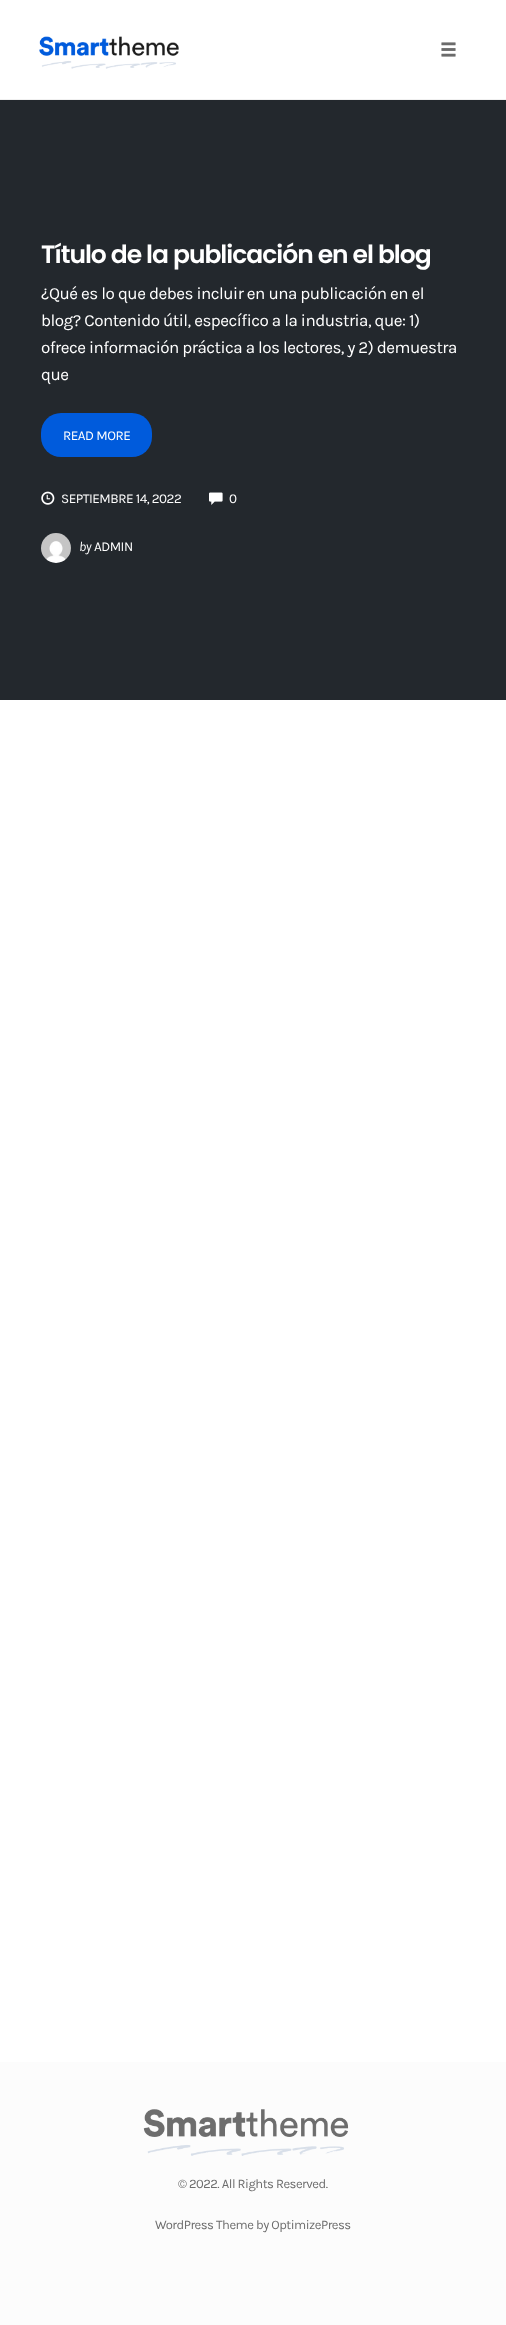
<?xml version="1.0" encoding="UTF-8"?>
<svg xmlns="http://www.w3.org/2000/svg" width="506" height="2325">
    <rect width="100%" height="100%" fill="#FFFFFF"/>
    <rect x="0" y="99" width="506" height="1" fill="#F0F0F0"/>
    <image x="39" y="36" width="140" height="33" href="img_01.png"/>
    <image x="441" y="42" width="15" height="15" href="img_02.png"/>
    <rect x="0" y="100" width="506" height="600" fill="#23282D"/>
    <text x="41" y="263" font-family="Poppins" font-size="25" font-weight="600" letter-spacing="-1" fill="#FFFFFF">Título de la publicación en el blog</text>
    <text font-family="Karla" font-size="17" letter-spacing="-0.5" fill="#FFFFFF">
        <tspan x="41" y="299">¿Qué es lo que debes incluir en una publicación en el</tspan>
        <tspan x="41" y="326">blog? Contenido útil, específico a la industria, que: 1)</tspan>
        <tspan x="41" y="353">ofrece información práctica a los lectores, y 2) demuestra</tspan>
        <tspan x="41" y="380">que</tspan>
    </text>
    <rect x="41" y="413" width="111" height="44" rx="20" fill="#005BDC"/>
    <text x="63" y="440" font-family="Karla" font-size="13.5" letter-spacing="-0.5" fill="#FFFFFF">READ MORE</text>
    <image x="41" y="491" width="14" height="14" href="img_03.png"/>
    <text x="61" y="503" font-family="Karla" font-size="13.5" letter-spacing="-0.5" fill="#FFFFFF">SEPTIEMBRE 14, 2022</text>
    <image x="209" y="492" width="14" height="13" href="img_04.png"/>
    <text x="229" y="503" font-family="Karla" font-size="13.5" letter-spacing="-0.5" fill="#FFFFFF">0</text>
    <image x="41" y="533" width="30" height="30" href="img_05.png"/>
    <text x="79" y="551" font-family="Karla" font-size="13.5" font-style="italic" letter-spacing="-0.5" fill="#FFFFFF">by</text>
    <text x="94" y="551" font-family="Karla" font-size="13.5" letter-spacing="-0.5" fill="#FFFFFF">ADMIN</text>
    <rect x="0" y="2062" width="506" height="263" fill="#FCFCFC"/>
    <image x="143" y="2109" width="206" height="47" href="img_06.png"/>
    <text x="178" y="2188" font-family="Karla" font-size="13" letter-spacing="-0.5" fill="#6D6D6D">© 2022. All Rights Reserved.</text>
    <text x="155" y="2229" font-family="Karla" font-size="13" letter-spacing="-0.5" fill="#6D6D6D">WordPress Theme by OptimizePress</text>
</svg>
